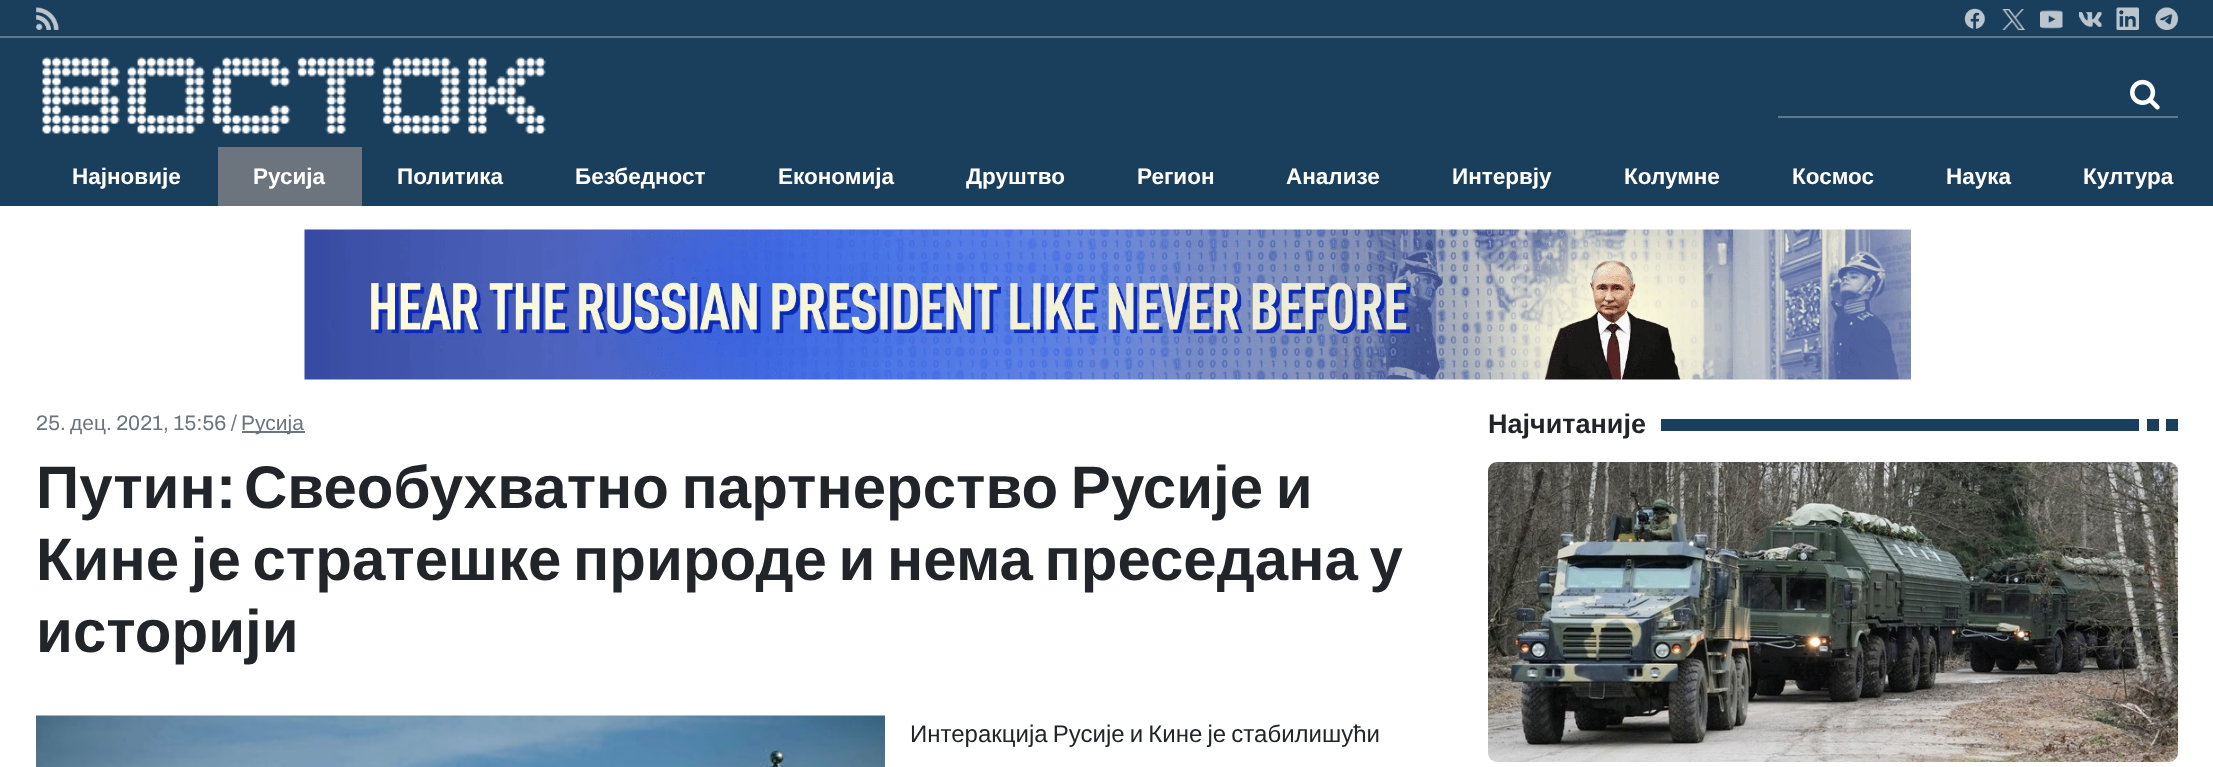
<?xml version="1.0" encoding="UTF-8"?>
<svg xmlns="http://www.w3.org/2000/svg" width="2213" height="767">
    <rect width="100%" height="100%" fill="#FFFFFF"/>
    <rect x="0" y="0" width="2213" height="36" fill="#1A3F5C"/>
    <rect x="0" y="36" width="2213" height="2" fill="#5D778B"/>
    <image x="36" y="7" width="23" height="23" href="img_01.png"/>
    <image x="1964" y="8" width="22" height="21" href="img_02.png"/>
    <image x="2002" y="9" width="23" height="21" href="img_03.png"/>
    <image x="2040" y="10" width="23" height="19" href="img_04.png"/>
    <image x="2079" y="12" width="23" height="15" href="img_05.png"/>
    <image x="2116" y="7" width="23" height="23" href="img_06.png"/>
    <image x="2155" y="7" width="23" height="23" href="img_07.png"/>
    <rect x="0" y="38" width="2213" height="168" fill="#1A3F5C"/>
    <image x="42" y="56" width="504" height="78" href="img_08.png"/>
    <rect x="1778" y="116" width="400" height="2" fill="#5D778B"/>
    <image x="2130" y="79" width="30" height="31" href="img_09.png"/>
    <text x="72" y="184" font-family="Liberation Sans" font-size="22.5" font-weight="700" fill="#FFFFFF">Најновије</text>
    <rect x="218" y="147" width="144" height="59" fill="#6C757D"/>
    <text x="253" y="184" font-family="Liberation Sans" font-size="22.5" font-weight="700" fill="#FFFFFF">Русија</text>
    <text x="397" y="184" font-family="Liberation Sans" font-size="22.5" font-weight="700" fill="#FFFFFF">Политика</text>
    <text x="575" y="184" font-family="Liberation Sans" font-size="22.5" font-weight="700" fill="#FFFFFF">Безбедност</text>
    <text x="778" y="184" font-family="Liberation Sans" font-size="22.5" font-weight="700" fill="#FFFFFF">Економија</text>
    <text x="966" y="184" font-family="Liberation Sans" font-size="22.5" font-weight="700" fill="#FFFFFF">Друштво</text>
    <text x="1137" y="184" font-family="Liberation Sans" font-size="22.5" font-weight="700" fill="#FFFFFF">Регион</text>
    <text x="1286" y="184" font-family="Liberation Sans" font-size="22.5" font-weight="700" fill="#FFFFFF">Анализе</text>
    <text x="1452" y="184" font-family="Liberation Sans" font-size="22.5" font-weight="700" fill="#FFFFFF">Интервју</text>
    <text x="1624" y="184" font-family="Liberation Sans" font-size="22.5" font-weight="700" fill="#FFFFFF">Колумне</text>
    <text x="1792" y="184" font-family="Liberation Sans" font-size="22.5" font-weight="700" fill="#FFFFFF">Космос</text>
    <text x="1946" y="184" font-family="Liberation Sans" font-size="22.5" font-weight="700" fill="#FFFFFF">Наука</text>
    <text x="2083" y="184" font-family="Liberation Sans" font-size="22.5" font-weight="700" fill="#FFFFFF">Култура</text>
    <image x="304" y="229" width="1607" height="151" href="img_10.png"/>
    <text x="36" y="430" font-family="Archivo" font-size="21" fill="#6C757D">25.</text>
    <text x="70" y="430" font-family="Liberation Sans" font-size="21" fill="#6C757D">дец</text>
    <text x="106" y="430" font-family="Archivo" font-size="21" fill="#6C757D">. 2021, 15:56 /</text>
    <rect x="242" y="431" width="63" height="2" fill="#6C757D"/>
    <text x="241" y="430" font-family="Liberation Sans" font-size="21" fill="#6C757D">Русија</text>
    <text x="36" y="508" font-family="Liberation Sans" font-size="60" font-weight="700" fill="#212529">Путин</text>
    <text x="216" y="508" font-family="Archivo" font-size="60" font-weight="700" fill="#212529">:</text>
    <text x="244" y="508" word-spacing="-4" font-family="Liberation Sans" font-size="60" font-weight="700" fill="#212529">Свеобухватно партнерство Русије и</text>
    <text font-family="Liberation Sans" font-size="60" font-weight="700" fill="#212529">
        <tspan x="36" y="580" word-spacing="-5">Кине је стратешке природе и нема преседана у</tspan>
        <tspan x="36" y="652">историји</tspan>
    </text>
    <image x="36" y="715" width="849" height="52" href="img_11.png"/>
    <text x="910" y="742" word-spacing="-1.5" font-family="Liberation Sans" font-size="24" fill="#212529">Интеракција Русије и Кине је стабилишући</text>
    <text x="1488" y="433" font-family="Liberation Sans" font-size="27" font-weight="700" fill="#212529">Најчитаније</text>
    <rect x="1661" y="419" width="478" height="12" fill="#1A3F5C"/>
    <rect x="2147" y="419" width="12" height="12" fill="#1A3F5C"/>
    <rect x="2166" y="419" width="12" height="12" fill="#1A3F5C"/>
    <image x="1488" y="462" width="690" height="300" href="img_12.png"/>
</svg>
